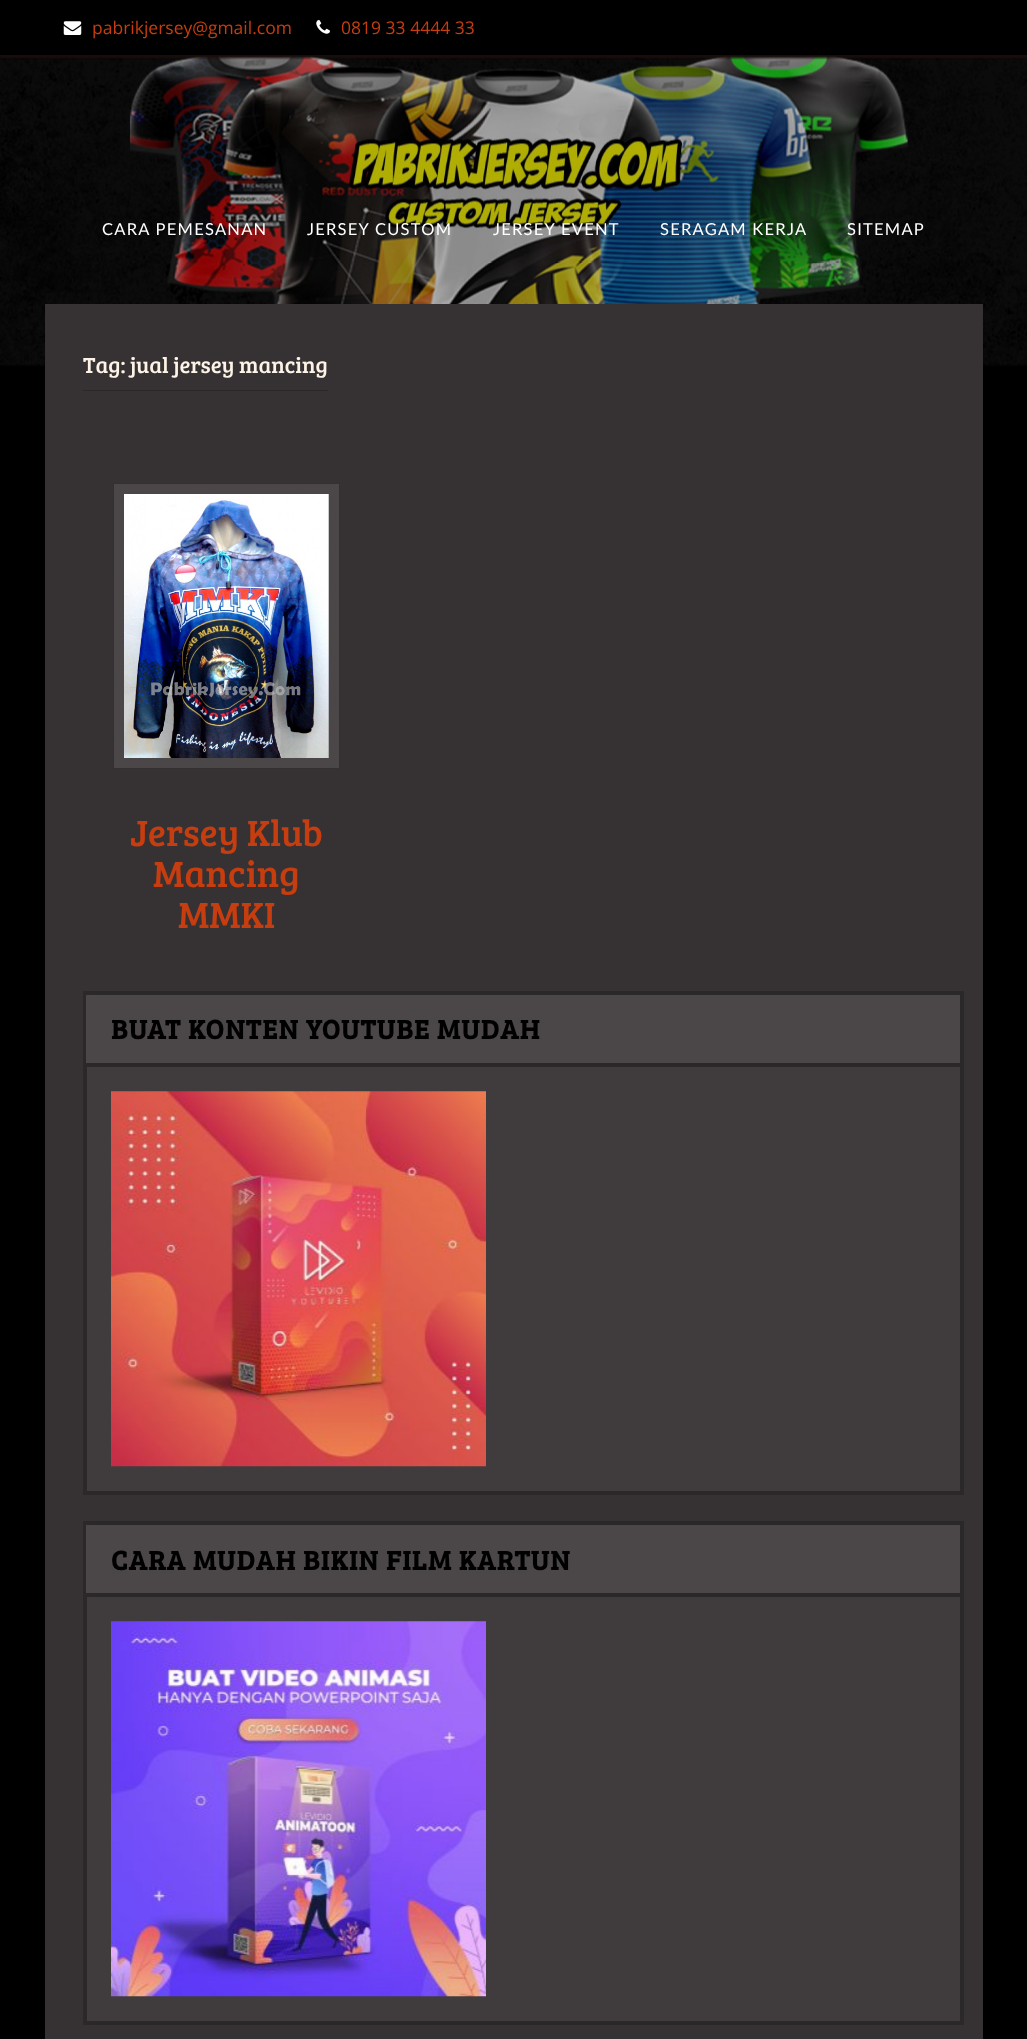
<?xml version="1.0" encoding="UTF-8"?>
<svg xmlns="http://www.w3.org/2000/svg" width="1027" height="2039">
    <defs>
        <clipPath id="clip1"><rect x="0" y="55" width="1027" height="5"/></clipPath>
        <filter id="blur1" x="-50%" y="-200%" width="200%" height="500%"><feGaussianBlur stdDeviation="1"/></filter>
    </defs>
    <rect width="100%" height="100%" fill="#000000"/>
    <image x="0" y="55" width="1027" height="311" href="img_06.png"/>
    <g clip-path="url(#clip1)">
        <rect x="0" y="3" width="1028" height="55" fill="#121010" filter="url(#blur1)"/>
    </g>
    <image x="63" y="21" width="19" height="14" href="img_01.png"/>
    <text x="92" y="34" font-family="Open Sans" font-size="17.5" fill="#C63D0F">pabrikjersey@gmail.com</text>
    <image x="316" y="20" width="14" height="14" href="img_02.png"/>
    <text x="341" y="34" font-family="Open Sans" font-size="17.5" fill="#C63D0F">0819 33 4444 33</text>
    <text x="102" y="235" font-family="Lato" font-size="16.5" letter-spacing="1.25" fill="#FFFFFF">CARA PEMESANAN</text>
    <text x="307" y="235" font-family="Lato" font-size="16.5" letter-spacing="1.25" fill="#FFFFFF">JERSEY CUSTOM</text>
    <text x="493" y="235" font-family="Lato" font-size="16.5" letter-spacing="1.25" fill="#FFFFFF">JERSEY EVENT</text>
    <text x="660" y="235" font-family="Lato" font-size="16.5" letter-spacing="1.25" fill="#FFFFFF">SERAGAM KERJA</text>
    <text x="847" y="235" font-family="Lato" font-size="16.5" letter-spacing="1.25" fill="#FFFFFF">SITEMAP</text>
    <rect x="45" y="304" width="938" height="1735" fill="#363233"/>
    <rect x="83" y="390" width="245" height="1" fill="#2B2829"/>
    <text x="83" y="373" font-family="Bree Serif" font-size="22.5" fill="#FDF3E7">Tag: jual jersey mancing</text>
    <rect x="119" y="489" width="215" height="274" fill="none" stroke="#4B4647" stroke-width="10"/>
    <image x="124" y="494" width="205" height="264" href="img_03.png"/>
    <rect x="113.5" y="483.5" width="226" height="285" fill="none" stroke="#333030"/>
    <text x="130" y="846" font-family="Bree Serif" font-size="37.5" fill="#C63D0F">Jersey Klub</text>
    <text x="153" y="887" font-family="Bree Serif" font-size="37.5" fill="#C63D0F">Mancing</text>
    <text x="178" y="928" font-family="Bree Serif" font-size="37.5" fill="#C63D0F">MMKI</text>
    <rect x="87" y="1067" width="873" height="424" fill="#403C3D"/>
    <rect x="85" y="993" width="877" height="500" fill="none" stroke="#2B2829" stroke-width="4"/>
    <rect x="86" y="995" width="874" height="68" fill="#4B4647"/>
    <rect x="86" y="1063" width="874" height="4" fill="#2B2829"/>
    <text x="111" y="1039" font-family="Bree Serif" font-size="27.5" font-weight="700" letter-spacing="1.25" fill="#000000">BUAT KONTEN YOUTUBE MUDAH</text>
    <image x="111" y="1091" width="375" height="376" href="img_04.png"/>
    <rect x="87" y="1597" width="873" height="424" fill="#403C3D"/>
    <rect x="85" y="1523" width="877" height="500" fill="none" stroke="#2B2829" stroke-width="4"/>
    <rect x="86" y="1525" width="874" height="68" fill="#4B4647"/>
    <rect x="86" y="1593" width="874" height="4" fill="#2B2829"/>
    <text x="111" y="1570" font-family="Bree Serif" font-size="27.5" font-weight="700" letter-spacing="1.25" fill="#000000">CARA MUDAH BIKIN FILM KARTUN</text>
    <image x="111" y="1621" width="375" height="376" href="img_05.png"/>
</svg>
